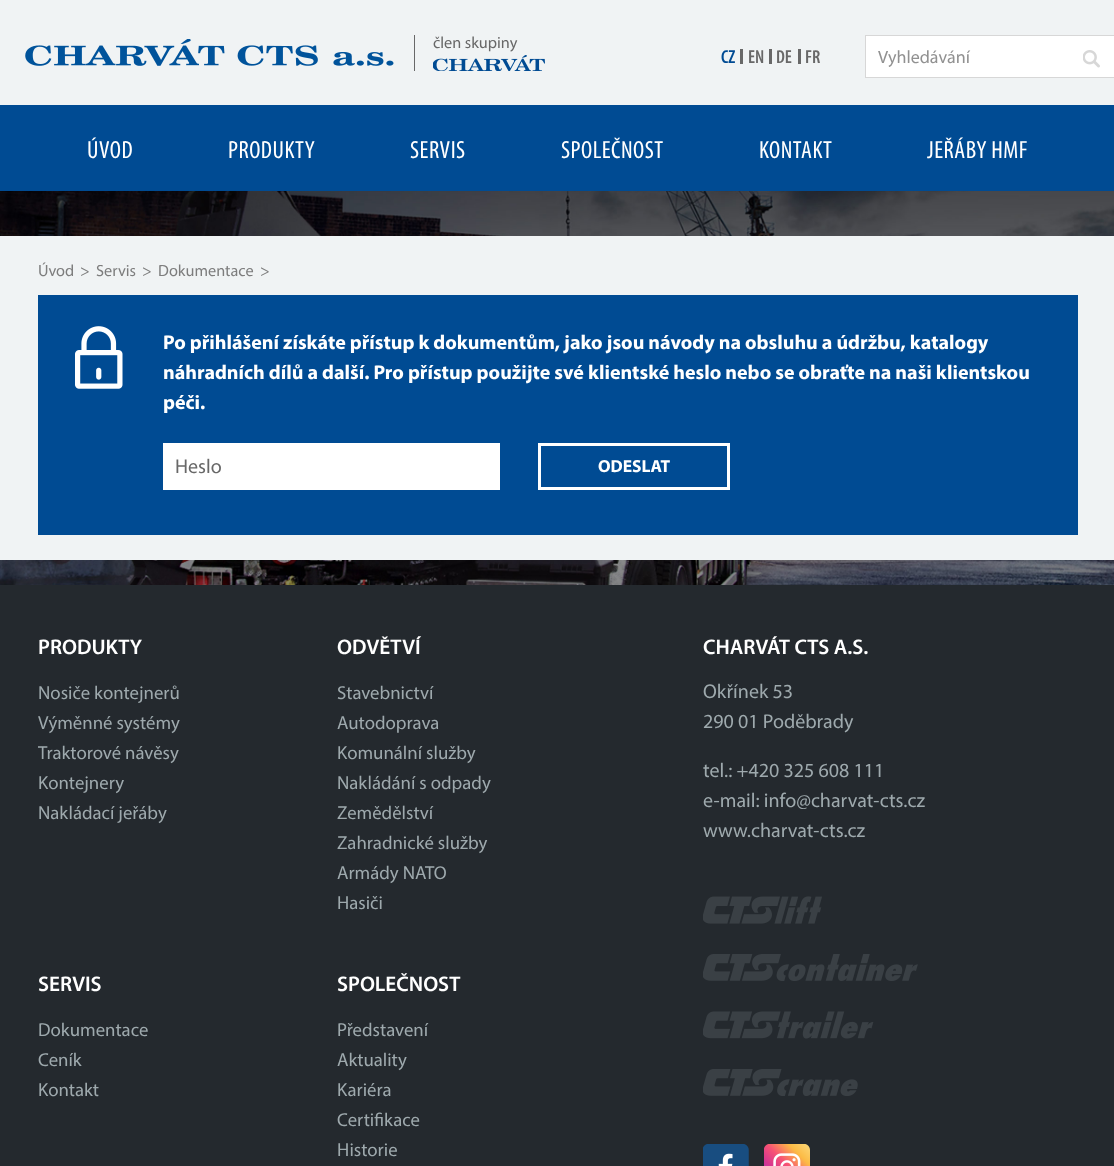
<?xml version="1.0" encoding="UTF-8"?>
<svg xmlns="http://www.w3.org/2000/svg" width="1114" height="1166">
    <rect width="100%" height="100%" fill="#F0F3F4"/>
    <image x="0" y="191" width="1114" height="394" href="img_01.png"/>
    <image x="25" y="39" width="369" height="27" href="img_02.png"/>
    <rect x="414" y="35" width="1" height="36" fill="#686868"/>
    <text x="433" y="48" font-family="Myriad" font-size="16.25" fill="#686868">člen skupiny</text>
    <image x="433" y="55" width="112" height="16" href="img_03.png"/>
    <rect x="0" y="105" width="1114" height="86" fill="#004B93"/>
    <rect x="865.5" y="35.5" width="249" height="42" fill="#FFFFFF" stroke="#D7D7D7"/>
    <text x="878" y="63" font-family="Myriad" font-size="18" fill="#919191">Vyhledávání</text>
    <image x="1083" y="50" width="17" height="18" href="img_04.png"/>
    <text x="87" y="158" font-family="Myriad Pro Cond" font-size="25" letter-spacing="0.5" fill="#FFFFFF">ÚVOD</text>
    <text x="228" y="158" font-family="Myriad Pro Cond" font-size="25" letter-spacing="0.5" fill="#FFFFFF">PRODUKTY</text>
    <text x="410" y="158" font-family="Myriad Pro Cond" font-size="25" letter-spacing="0.5" fill="#FFFFFF">SERVIS</text>
    <text x="561" y="158" font-family="Myriad Pro Cond" font-size="25" letter-spacing="0.5" fill="#FFFFFF">SPOLEČNOST</text>
    <text x="759" y="158" font-family="Myriad Pro Cond" font-size="25" letter-spacing="0.5" fill="#FFFFFF">KONTAKT</text>
    <text x="927" y="158" font-family="Myriad Pro Cond" font-size="25" letter-spacing="0.5" fill="#FFFFFF">JEŘÁBY HMF</text>
    <text x="721" y="63" font-family="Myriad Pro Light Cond" font-size="18.75" font-weight="600" fill="#004B93">CZ</text>
    <rect x="740" y="49" width="3" height="15" fill="#686868"/>
    <text x="748" y="63" font-family="Myriad Pro Light Cond" font-size="18.75" font-weight="600" fill="#686868">EN</text>
    <rect x="769" y="49" width="3" height="15" fill="#686868"/>
    <text x="776" y="63" font-family="Myriad Pro Light Cond" font-size="18.75" font-weight="600" fill="#686868">DE</text>
    <rect x="798" y="49" width="3" height="15" fill="#686868"/>
    <text x="805" y="63" font-family="Myriad Pro Light Cond" font-size="18.75" font-weight="600" fill="#686868">FR</text>
    <rect x="0" y="236" width="1114" height="324" fill="#F0F3F4"/>
    <text x="38" y="276" font-family="Myriad" font-size="16.25" fill="#7D7D7D">Úvod</text>
    <text x="80" y="276" font-family="Myriad" font-size="16.25" fill="#7D7D7D">&gt;</text>
    <text x="96" y="276" font-family="Myriad" font-size="16.25" fill="#7D7D7D">Servis</text>
    <text x="142" y="276" font-family="Myriad" font-size="16.25" fill="#7D7D7D">&gt;</text>
    <text x="158" y="276" font-family="Myriad" font-size="16.25" fill="#7D7D7D">Dokumentace</text>
    <text x="260" y="276" font-family="Myriad" font-size="16.25" fill="#7D7D7D">&gt;</text>
    <rect x="38" y="295" width="1040" height="240" fill="#004B93"/>
    <image x="75" y="326" width="48" height="63" href="img_05.png"/>
    <text font-family="Myriad" font-size="20" font-weight="700" fill="#FFFFFF">
        <tspan x="163" y="349">Po přihlášení získáte přístup k dokumentům, jako jsou návody na obsluhu a údržbu, katalogy</tspan>
        <tspan x="163" y="379">náhradních dílů a další. Pro přístup použijte své klientské heslo nebo se obraťte na naši klientskou</tspan>
        <tspan x="163" y="409">péči.</tspan>
    </text>
    <rect x="163" y="443" width="337" height="47" fill="#FFFFFF"/>
    <text x="175" y="473" font-family="Myriad" font-size="20" fill="#686868">Heslo</text>
    <rect x="539.5" y="444.5" width="189" height="44" fill="none" stroke="#FFFFFF" stroke-width="3"/>
    <text x="598" y="472" font-family="Myriad" font-size="17.5" font-weight="700" fill="#FFFFFF">ODESLAT</text>
    <rect x="0" y="585" width="1114" height="581" fill="#24292E"/>
    <text x="38" y="654" font-family="Myriad" font-size="21.25" font-weight="600" fill="#FFFFFF">PRODUKTY</text>
    <text font-family="Myriad" font-size="18.75" fill="#9EA9AD">
        <tspan x="38" y="699">Nosiče kontejnerů</tspan>
        <tspan x="38" y="729">Výměnné systémy</tspan>
        <tspan x="38" y="759">Traktorové návěsy</tspan>
        <tspan x="38" y="789">Kontejnery</tspan>
        <tspan x="38" y="819">Nakládací jeřáby</tspan>
    </text>
    <text x="337" y="654" font-family="Myriad" font-size="21.25" font-weight="600" fill="#FFFFFF">ODVĚTVÍ</text>
    <text font-family="Myriad" font-size="18.75" fill="#9EA9AD">
        <tspan x="337" y="699">Stavebnictví</tspan>
        <tspan x="337" y="729">Autodoprava</tspan>
        <tspan x="337" y="759">Komunální služby</tspan>
        <tspan x="337" y="789">Nakládání s odpady</tspan>
        <tspan x="337" y="819">Zemědělství</tspan>
        <tspan x="337" y="849">Zahradnické služby</tspan>
        <tspan x="337" y="879">Armády NATO</tspan>
        <tspan x="337" y="909">Hasiči</tspan>
    </text>
    <text x="38" y="991" font-family="Myriad" font-size="21.25" font-weight="600" fill="#FFFFFF">SERVIS</text>
    <text font-family="Myriad" font-size="18.75" fill="#9EA9AD">
        <tspan x="38" y="1036">Dokumentace</tspan>
        <tspan x="38" y="1066">Ceník</tspan>
        <tspan x="38" y="1096">Kontakt</tspan>
    </text>
    <text x="337" y="991" font-family="Myriad" font-size="21.25" font-weight="600" fill="#FFFFFF">SPOLEČNOST</text>
    <text font-family="Myriad" font-size="18.75" fill="#9EA9AD">
        <tspan x="337" y="1036">Představení</tspan>
        <tspan x="337" y="1066">Aktuality</tspan>
        <tspan x="337" y="1096">Kariéra</tspan>
        <tspan x="337" y="1126">Certifikace</tspan>
        <tspan x="337" y="1156">Historie</tspan>
    </text>
    <text x="703" y="654" font-family="Myriad" font-size="21.25" font-weight="600" fill="#FFFFFF">CHARVÁT CTS A.S.</text>
    <text font-family="Myriad" font-size="20" fill="#9EA9AD">
        <tspan x="703" y="698">Okřínek 53</tspan>
        <tspan x="703" y="728">290 01 Poděbrady</tspan>
    </text>
    <text font-family="Myriad" font-size="20" fill="#9EA9AD">
        <tspan x="703" y="777">tel.: +420 325 608 111</tspan>
        <tspan x="703" y="807">e-mail: info@charvat-cts.cz</tspan>
        <tspan x="703" y="837">www.charvat-cts.cz</tspan>
    </text>
    <image x="703" y="896" width="119" height="28" href="img_06.png"/>
    <image x="703" y="954" width="215" height="27" href="img_07.png"/>
    <image x="703" y="1011" width="171" height="28" href="img_08.png"/>
    <image x="703" y="1069" width="155" height="27" href="img_09.png"/>
    <image x="703" y="1144" width="46" height="22" href="img_10.png"/>
    <image x="764" y="1144" width="46" height="22" href="img_11.png"/>
</svg>
